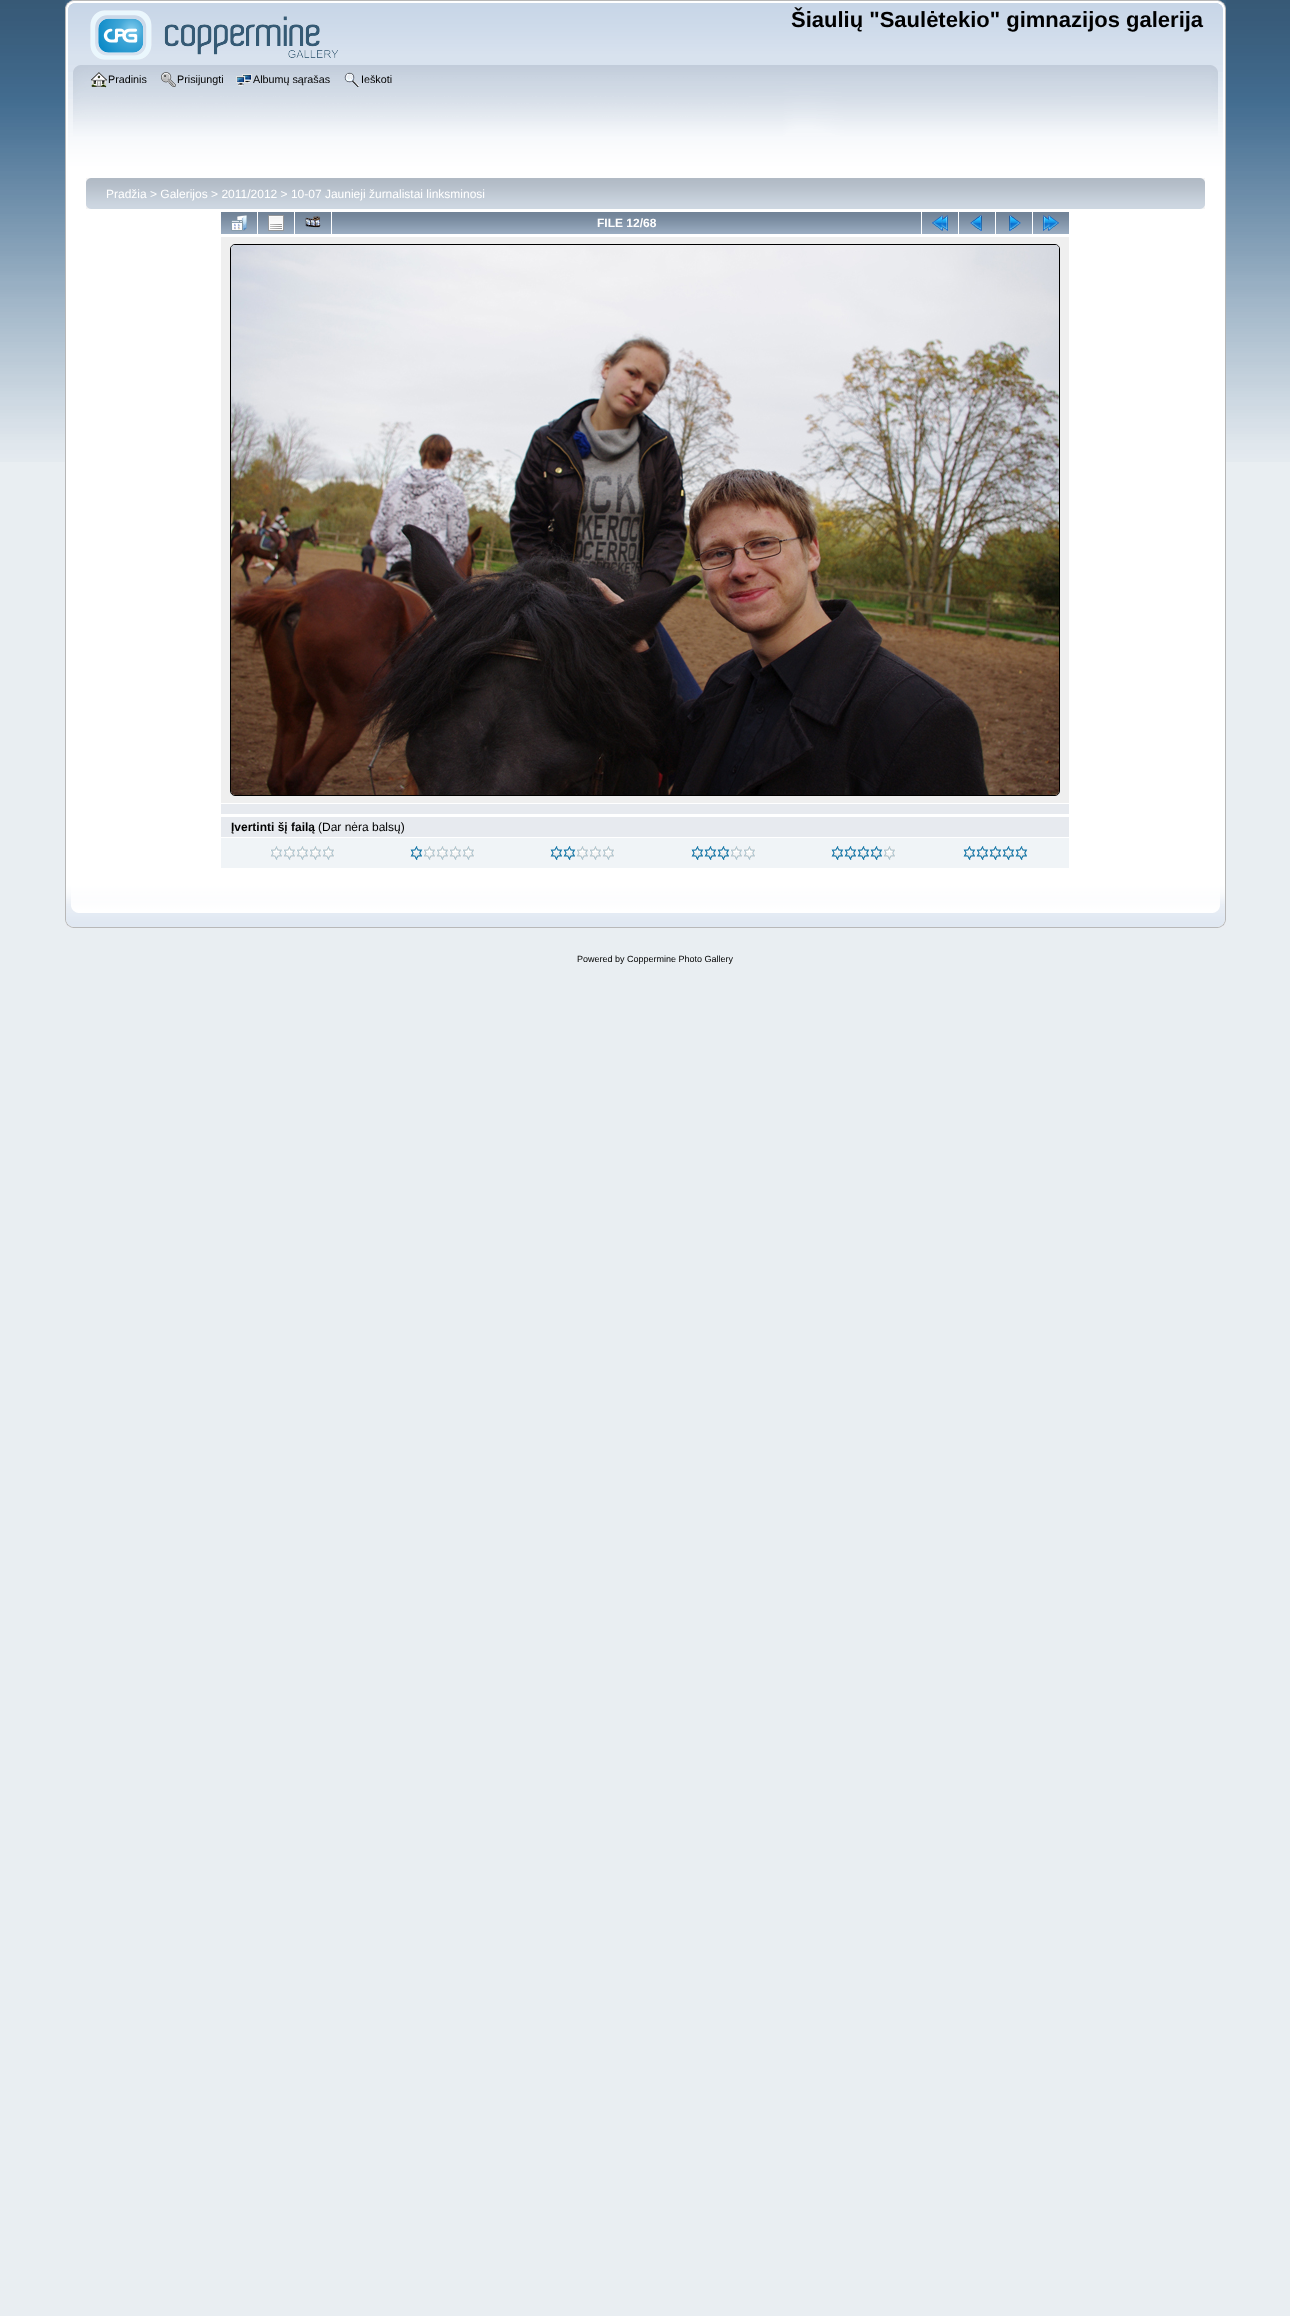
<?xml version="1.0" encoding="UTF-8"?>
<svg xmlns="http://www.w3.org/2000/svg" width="1290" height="2316">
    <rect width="100%" height="100%" fill="#E9EEF2"/>
    <image x="0" y="0" width="1290" height="462" href="img_01.png"/>
    <image x="65" y="0" width="1153" height="65" href="img_02.png"/>
    <image x="1218" y="0" width="8" height="65" href="img_03.png"/>
    <image x="90" y="10" width="248" height="50" href="img_04.png"/>
    <text x="791" y="27" font-family="Liberation Sans" font-size="22" font-weight="700" fill="#000000">Šiaulių "Saulėtekio" gimnazijos galerija</text>
    <image x="65" y="65" width="1146" height="110" href="img_05.png"/>
    <image x="1211" y="65" width="15" height="110" href="img_06.png"/>
    <image x="91" y="72" width="16" height="16" href="img_07.png"/>
    <text x="108" y="83" font-family="Liberation Sans" font-size="10.75" fill="#000000">Pradinis</text>
    <image x="161" y="72" width="15" height="15" href="img_08.png"/>
    <text x="177" y="83" font-family="Liberation Sans" font-size="10.75" fill="#000000">Prisijungti</text>
    <image x="236" y="74" width="16" height="12" href="img_09.png"/>
    <text x="253" y="83" font-family="Liberation Sans" font-size="10.75" fill="#000000">Albumų sąrašas</text>
    <image x="344" y="72" width="16" height="15" href="img_10.png"/>
    <text x="361" y="83" font-family="Liberation Sans" font-size="10.75" fill="#000000">Ieškoti</text>
    <rect x="66" y="175" width="1159" height="709" fill="#FFFFFF"/>
    <rect x="65" y="175" width="1" height="709" fill="#B7B7B7"/>
    <rect x="1225" y="175" width="1" height="709" fill="#B7B7B7"/>
    <image x="86" y="178" width="1114" height="31" href="img_11.png"/>
    <image x="1200" y="178" width="5" height="31" href="img_12.png"/>
    <text x="106" y="198" font-family="Liberation Sans" font-size="12" fill="#FFFFFF">Pradžia &gt; Galerijos &gt; 2011/2012 &gt; 10-07 Jaunieji žurnalistai linksminosi</text>
    <image x="221" y="212" width="36" height="22" href="img_13.png"/>
    <image x="231" y="215" width="16" height="16" href="img_14.png"/>
    <image x="258" y="212" width="36" height="22" href="img_13.png"/>
    <image x="268" y="215" width="16" height="16" href="img_15.png"/>
    <image x="295" y="212" width="36" height="22" href="img_13.png"/>
    <image x="305" y="216" width="16" height="12" href="img_16.png"/>
    <image x="332" y="212" width="589" height="22" href="img_17.png"/>
    <text x="597" y="227" font-family="Liberation Sans" font-size="12" font-weight="700" fill="#FFFFFF">FILE 12/68</text>
    <image x="922" y="212" width="36" height="22" href="img_13.png"/>
    <image x="932" y="215" width="16" height="16" href="img_18.png"/>
    <image x="959" y="212" width="36" height="22" href="img_13.png"/>
    <image x="970" y="215" width="12" height="16" href="img_19.png"/>
    <image x="996" y="212" width="36" height="22" href="img_13.png"/>
    <image x="1009" y="215" width="12" height="16" href="img_20.png"/>
    <image x="1033" y="212" width="36" height="22" href="img_13.png"/>
    <image x="1043" y="215" width="16" height="16" href="img_21.png"/>
    <rect x="221" y="237" width="848" height="566" fill="#EFEFEF"/>
    <rect x="230.5" y="244.5" width="829" height="551" rx="4.5" fill="none" stroke="#000000"/>
    <image x="231" y="245" width="828" height="550" href="img_22.png"/>
    <rect x="221" y="804" width="848" height="10" fill="#E7EAEF"/>
    <rect x="221" y="817" width="848" height="20" fill="#E7EAEF"/>
    <text x="231" y="831" font-family="Liberation Sans" font-size="12" font-weight="700" fill="#000000">Įvertinti šį failą</text>
    <text x="318" y="831" font-family="Liberation Sans" font-size="12" fill="#000000">(Dar nėra balsų)</text>
    <rect x="221" y="838" width="848" height="30" fill="#F0F4F7"/>
    <image x="270" y="846" width="13" height="14" href="img_23.png"/>
    <image x="283" y="846" width="13" height="14" href="img_23.png"/>
    <image x="296" y="846" width="13" height="14" href="img_23.png"/>
    <image x="309" y="846" width="13" height="14" href="img_23.png"/>
    <image x="322" y="846" width="13" height="14" href="img_23.png"/>
    <image x="410" y="846" width="13" height="14" href="img_24.png"/>
    <image x="423" y="846" width="13" height="14" href="img_23.png"/>
    <image x="436" y="846" width="13" height="14" href="img_23.png"/>
    <image x="449" y="846" width="13" height="14" href="img_23.png"/>
    <image x="462" y="846" width="13" height="14" href="img_23.png"/>
    <image x="550" y="846" width="13" height="14" href="img_24.png"/>
    <image x="563" y="846" width="13" height="14" href="img_24.png"/>
    <image x="576" y="846" width="13" height="14" href="img_23.png"/>
    <image x="589" y="846" width="13" height="14" href="img_23.png"/>
    <image x="602" y="846" width="13" height="14" href="img_23.png"/>
    <image x="691" y="846" width="13" height="14" href="img_24.png"/>
    <image x="704" y="846" width="13" height="14" href="img_24.png"/>
    <image x="717" y="846" width="13" height="14" href="img_24.png"/>
    <image x="730" y="846" width="13" height="14" href="img_23.png"/>
    <image x="743" y="846" width="13" height="14" href="img_23.png"/>
    <image x="831" y="846" width="13" height="14" href="img_24.png"/>
    <image x="844" y="846" width="13" height="14" href="img_24.png"/>
    <image x="857" y="846" width="13" height="14" href="img_24.png"/>
    <image x="870" y="846" width="13" height="14" href="img_24.png"/>
    <image x="883" y="846" width="13" height="14" href="img_23.png"/>
    <image x="963" y="846" width="13" height="14" href="img_24.png"/>
    <image x="976" y="846" width="13" height="14" href="img_24.png"/>
    <image x="989" y="846" width="13" height="14" href="img_24.png"/>
    <image x="1002" y="846" width="13" height="14" href="img_24.png"/>
    <image x="1015" y="846" width="13" height="14" href="img_24.png"/>
    <image x="65" y="884" width="1148" height="44" href="img_25.png"/>
    <image x="1213" y="884" width="13" height="44" href="img_26.png"/>
    <text x="577" y="962" font-family="Liberation Sans" font-size="9" fill="#000000">Powered by Coppermine Photo Gallery</text>
</svg>
